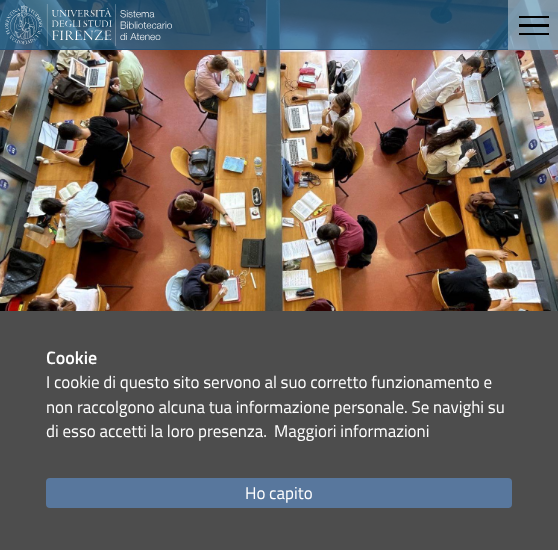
<?xml version="1.0" encoding="UTF-8"?>
<svg xmlns="http://www.w3.org/2000/svg" width="558" height="550">
    <rect width="100%" height="100%" fill="#FFFFFF"/>
    <image x="0" y="0" width="558" height="311" href="img_01.png"/>
    <rect x="0" y="0" width="558" height="49" fill="#1C5F89" fill-opacity="0.75"/>
    <rect x="0" y="49" width="558" height="1" fill="#285277"/>
    <image x="5" y="4" width="167" height="42" href="img_02.png"/>
    <rect x="508" y="0" width="50" height="50" fill="#FFFFFF" fill-opacity="0.4"/>
    <rect x="519" y="16" width="30" height="2" fill="#000000"/>
    <rect x="519" y="24" width="30" height="3" fill="#000000"/>
    <rect x="519" y="33" width="30" height="2" fill="#000000"/>
    <rect x="0" y="311" width="558" height="239" fill="#4D4D4D"/>
    <text x="46" y="364" font-family="Titillium Web" font-size="18" font-weight="600" fill="#FFFFFF">Cookie</text>
    <text font-family="Titillium Web" font-size="17" fill="#FFFFFF">
        <tspan x="46" y="388">I cookie di questo sito servono al suo corretto funzionamento e</tspan>
        <tspan x="46" y="413">non raccolgono alcuna tua informazione personale. Se navighi su</tspan>
        <tspan x="46" y="437">di esso accetti la loro presenza.</tspan>
    </text>
    <text x="274" y="437" font-family="Titillium Web" font-size="17" fill="#FFFFFF">Maggiori informazioni</text>
    <rect x="46" y="478" width="466" height="30" rx="4" fill="#58779D"/>
    <text x="245" y="499" font-family="Titillium Web" font-size="17" fill="#FFFFFF">Ho capito</text>
</svg>
